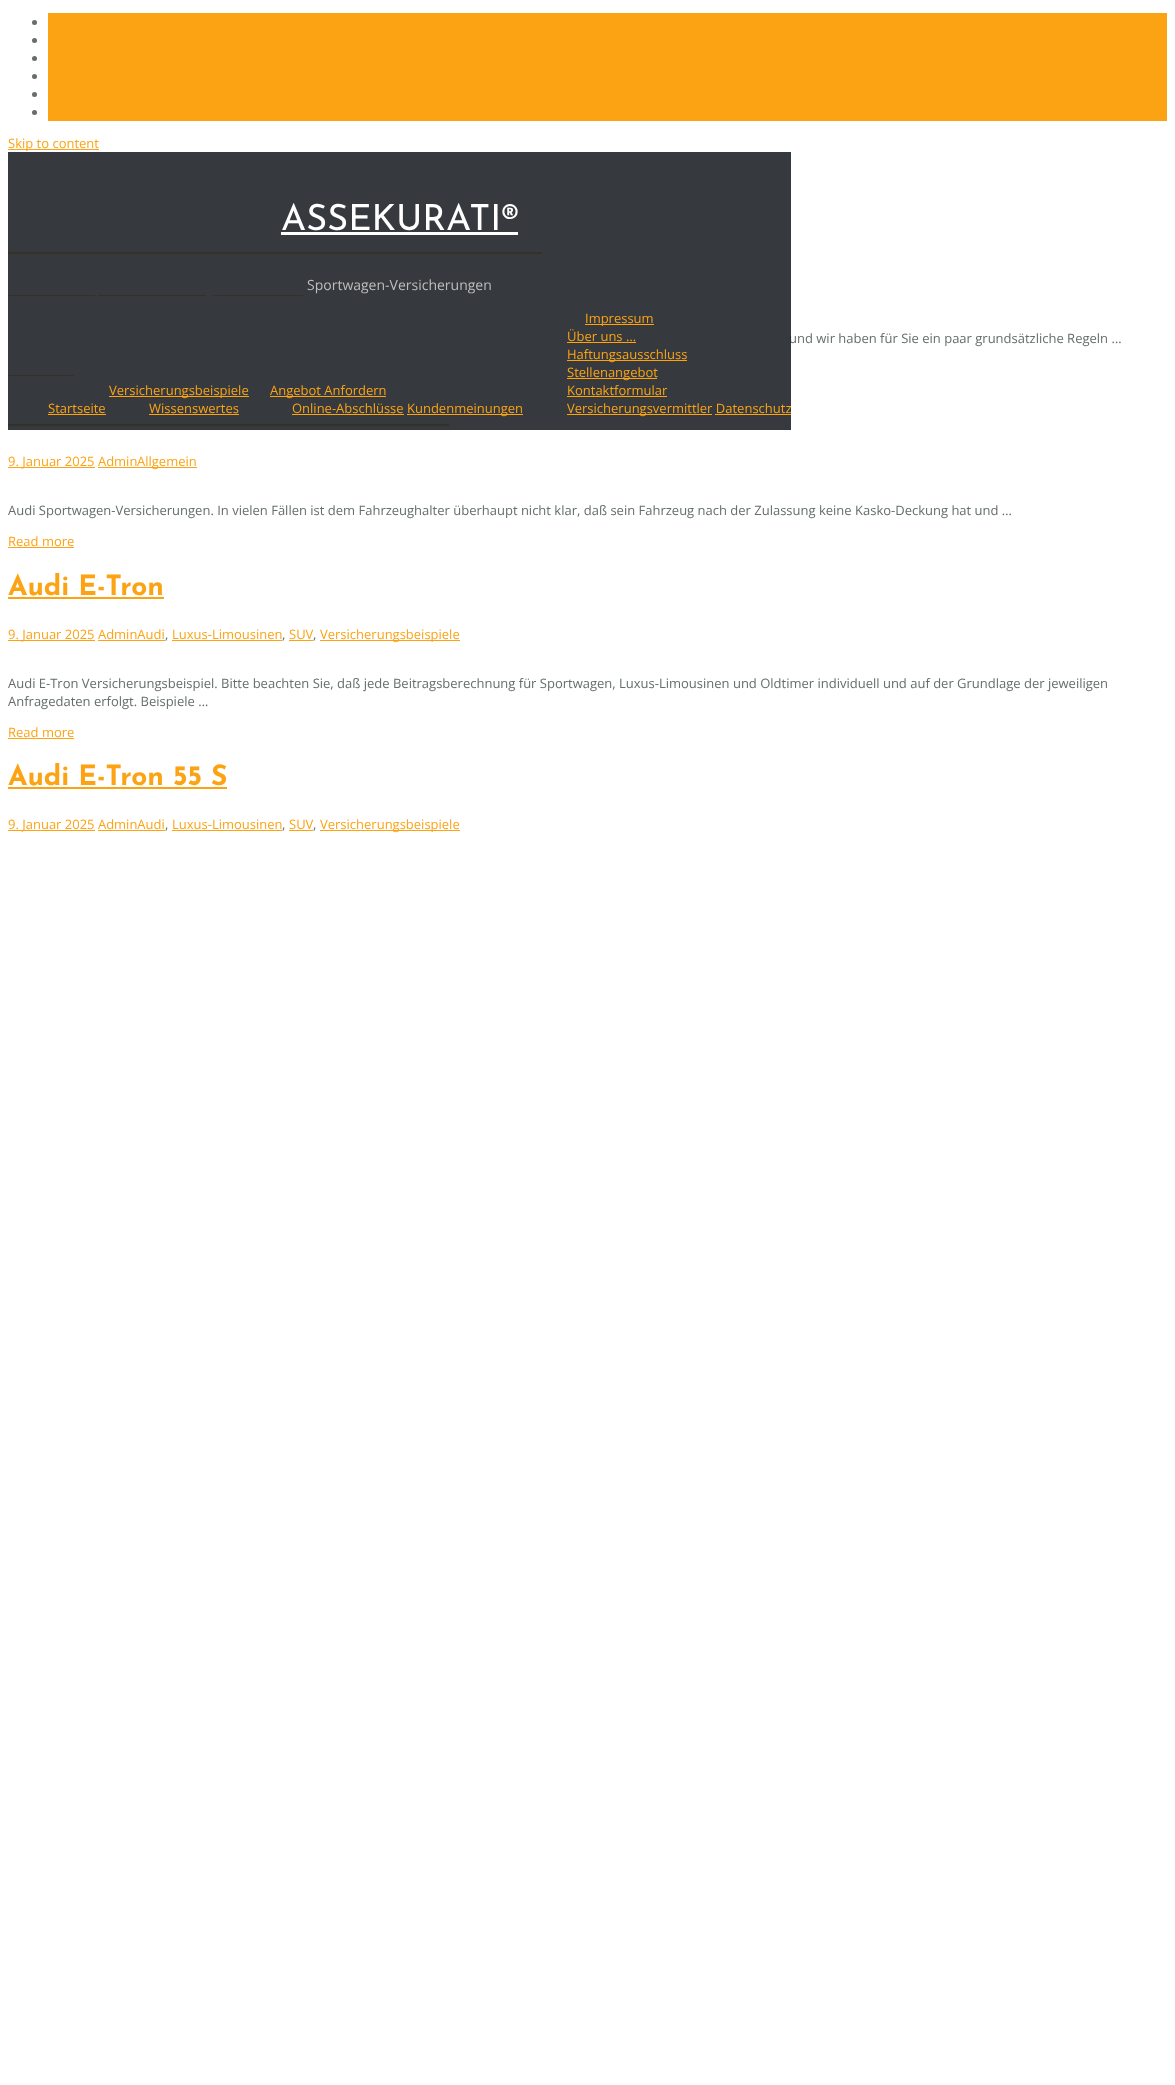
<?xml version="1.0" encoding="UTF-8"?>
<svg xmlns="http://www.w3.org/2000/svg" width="1175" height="2085">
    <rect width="100%" height="100%" fill="#FFFFFF"/>
    <rect x="48" y="13" width="1119" height="108" fill="#FCA314"/>
    <circle cx="34.5" cy="22.5" r="2.5" fill="#656D6D"/>
    <circle cx="34.5" cy="40.5" r="2.5" fill="#656D6D"/>
    <circle cx="34.5" cy="58.5" r="2.5" fill="#656D6D"/>
    <circle cx="34.5" cy="76.5" r="2.5" fill="#656D6D"/>
    <circle cx="34.5" cy="94.5" r="2.5" fill="#656D6D"/>
    <circle cx="34.5" cy="112.5" r="2.5" fill="#656D6D"/>
    <rect x="8" y="149" width="91" height="1" fill="#FCA314"/>
    <text x="8" y="148" font-family="Open Sans" font-size="13" fill="#FCA314">Skip to content</text>
    <rect x="8" y="252" width="534" height="2" fill="#FCA314"/>
    <rect x="8" y="295" width="87" height="1" fill="#FCA314"/>
    <rect x="98" y="295" width="108" height="1" fill="#FCA314"/>
    <rect x="213" y="295" width="90" height="1" fill="#FCA314"/>
    <text x="789" y="343" font-family="Open Sans" font-size="13" fill="#656D6D">und wir haben für Sie ein paar grundsätzliche Regeln …</text>
    <rect x="8" y="375" width="66" height="1" fill="#FCA314"/>
    <rect x="8" y="424" width="441" height="2" fill="#FCA314"/>
    <rect x="8" y="152" width="783" height="278" fill="#202529" fill-opacity="0.9"/>
    <text x="281" y="230" font-family="Josefin Sans" font-size="36" fill="#FFFFFF">ASSEKURATI®</text>
    <rect x="281" y="232" width="237" height="3" fill="#FFFFFF"/>
    <text x="307" y="290" font-family="Open Sans" font-size="14" fill="#BDBDBD">Sportwagen-Versicherungen</text>
    <text x="48" y="413" font-family="Open Sans" font-size="13" fill="#FCA314">Startseite</text>
    <rect x="48" y="414" width="58" height="1" fill="#FCA314"/>
    <rect x="109" y="396" width="140" height="1" fill="#FCA314"/>
    <text x="109" y="395" font-family="Open Sans" font-size="13" fill="#FCA314">Versicherungsbeispiele</text>
    <text x="149" y="413" font-family="Open Sans" font-size="13" fill="#FCA314">Wissenswertes</text>
    <rect x="149" y="414" width="90" height="1" fill="#FCA314"/>
    <rect x="270" y="396" width="116" height="1" fill="#FCA314"/>
    <text x="270" y="395" font-family="Open Sans" font-size="13" fill="#FCA314">Angebot Anfordern</text>
    <text x="292" y="413" font-family="Open Sans" font-size="13" fill="#FCA314">Online-Abschlüsse</text>
    <rect x="292" y="414" width="112" height="1" fill="#FCA314"/>
    <rect x="407" y="414" width="116" height="1" fill="#FCA314"/>
    <text x="407" y="413" font-family="Open Sans" font-size="13" fill="#FCA314">Kundenmeinungen</text>
    <rect x="585" y="324" width="69" height="1" fill="#FCA314"/>
    <text x="585" y="323" font-family="Open Sans" font-size="13" fill="#FCA314">Impressum</text>
    <text x="567" y="341" font-family="Open Sans" font-size="13" fill="#FCA314">Über uns …</text>
    <rect x="567" y="342" width="69" height="1" fill="#FCA314"/>
    <rect x="567" y="360" width="120" height="1" fill="#FCA314"/>
    <text x="567" y="359" font-family="Open Sans" font-size="13" fill="#FCA314">Haftungsausschluss</text>
    <rect x="567" y="378" width="90" height="1" fill="#FCA314"/>
    <text font-family="Open Sans" font-size="13" fill="#FCA314">
        <tspan x="567" y="377">Stellenangebot</tspan>
        <tspan x="567" y="395">Kontaktformular</tspan>
    </text>
    <rect x="567" y="396" width="100" height="1" fill="#FCA314"/>
    <rect x="567" y="414" width="145" height="1" fill="#FCA314"/>
    <text x="567" y="413" font-family="Open Sans" font-size="13" fill="#FCA314">Versicherungsvermittler Datenschutz</text>
    <rect x="715" y="414" width="76" height="1" fill="#FCA314"/>
    <rect x="8" y="467" width="87" height="1" fill="#FCA314"/>
    <text x="8" y="466" font-family="Open Sans" font-size="13" fill="#FCA314">9. Januar 2025 Admin</text>
    <rect x="98" y="467" width="99" height="1" fill="#FCA314"/>
    <text x="137" y="466" font-family="Open Sans" font-size="13" fill="#FCA314">Allgemein</text>
    <text x="8" y="515" font-family="Open Sans" font-size="13" fill="#656D6D">Audi Sportwagen-Versicherungen. In vielen Fällen ist dem Fahrzeughalter überhaupt nicht klar, daß sein Fahrzeug nach der Zulassung keine Kasko-Deckung hat und …</text>
    <text x="8" y="546" font-family="Open Sans" font-size="13" fill="#FCA314">Read more</text>
    <rect x="8" y="547" width="66" height="1" fill="#FCA314"/>
    <text x="8" y="595" font-family="Josefin Sans" font-size="28" font-weight="700" fill="#FCA314">Audi E-Tron</text>
    <rect x="8" y="597" width="156" height="2" fill="#FCA314"/>
    <rect x="8" y="640" width="87" height="1" fill="#FCA314"/>
    <text x="8" y="639" font-family="Open Sans" font-size="13" fill="#FCA314">9. Januar 2025 AdminAudi</text>
    <text x="165" y="639" font-family="Open Sans" font-size="13" fill="#656D6D">,</text>
    <text x="172" y="639" font-family="Open Sans" font-size="13" fill="#FCA314">Luxus-Limousinen</text>
    <text x="282" y="639" font-family="Open Sans" font-size="13" fill="#656D6D">,</text>
    <rect x="172" y="640" width="110" height="1" fill="#FCA314"/>
    <text x="289" y="639" font-family="Open Sans" font-size="13" fill="#FCA314">SUV</text>
    <text x="313" y="639" font-family="Open Sans" font-size="13" fill="#656D6D">,</text>
    <rect x="289" y="640" width="24" height="1" fill="#FCA314"/>
    <rect x="320" y="640" width="140" height="1" fill="#FCA314"/>
    <text x="320" y="639" font-family="Open Sans" font-size="13" fill="#FCA314">Versicherungsbeispiele</text>
    <rect x="98" y="640" width="67" height="1" fill="#FCA314"/>
    <text font-family="Open Sans" font-size="13" fill="#656D6D">
        <tspan x="8" y="688">Audi E-Tron Versicherungsbeispiel. Bitte beachten Sie, daß jede Beitragsberechnung für Sportwagen, Luxus-Limousinen und Oldtimer individuell und auf der Grundlage der jeweiligen</tspan>
        <tspan x="8" y="706">Anfragedaten erfolgt. Beispiele …</tspan>
    </text>
    <text x="8" y="737" font-family="Open Sans" font-size="13" fill="#FCA314">Read more</text>
    <rect x="8" y="738" width="66" height="1" fill="#FCA314"/>
    <text x="8" y="785" font-family="Josefin Sans" font-size="28" font-weight="700" fill="#FCA314">Audi E-Tron 55 S</text>
    <rect x="8" y="787" width="219" height="2" fill="#FCA314"/>
    <rect x="8" y="830" width="87" height="1" fill="#FCA314"/>
    <text x="8" y="829" font-family="Open Sans" font-size="13" fill="#FCA314">9. Januar 2025 AdminAudi</text>
    <text x="165" y="829" font-family="Open Sans" font-size="13" fill="#656D6D">,</text>
    <text x="172" y="829" font-family="Open Sans" font-size="13" fill="#FCA314">Luxus-Limousinen</text>
    <text x="282" y="829" font-family="Open Sans" font-size="13" fill="#656D6D">,</text>
    <rect x="172" y="830" width="110" height="1" fill="#FCA314"/>
    <text x="289" y="829" font-family="Open Sans" font-size="13" fill="#FCA314">SUV</text>
    <text x="313" y="829" font-family="Open Sans" font-size="13" fill="#656D6D">,</text>
    <rect x="289" y="830" width="24" height="1" fill="#FCA314"/>
    <rect x="320" y="830" width="140" height="1" fill="#FCA314"/>
    <text x="320" y="829" font-family="Open Sans" font-size="13" fill="#FCA314">Versicherungsbeispiele</text>
    <rect x="98" y="830" width="67" height="1" fill="#FCA314"/>
</svg>
